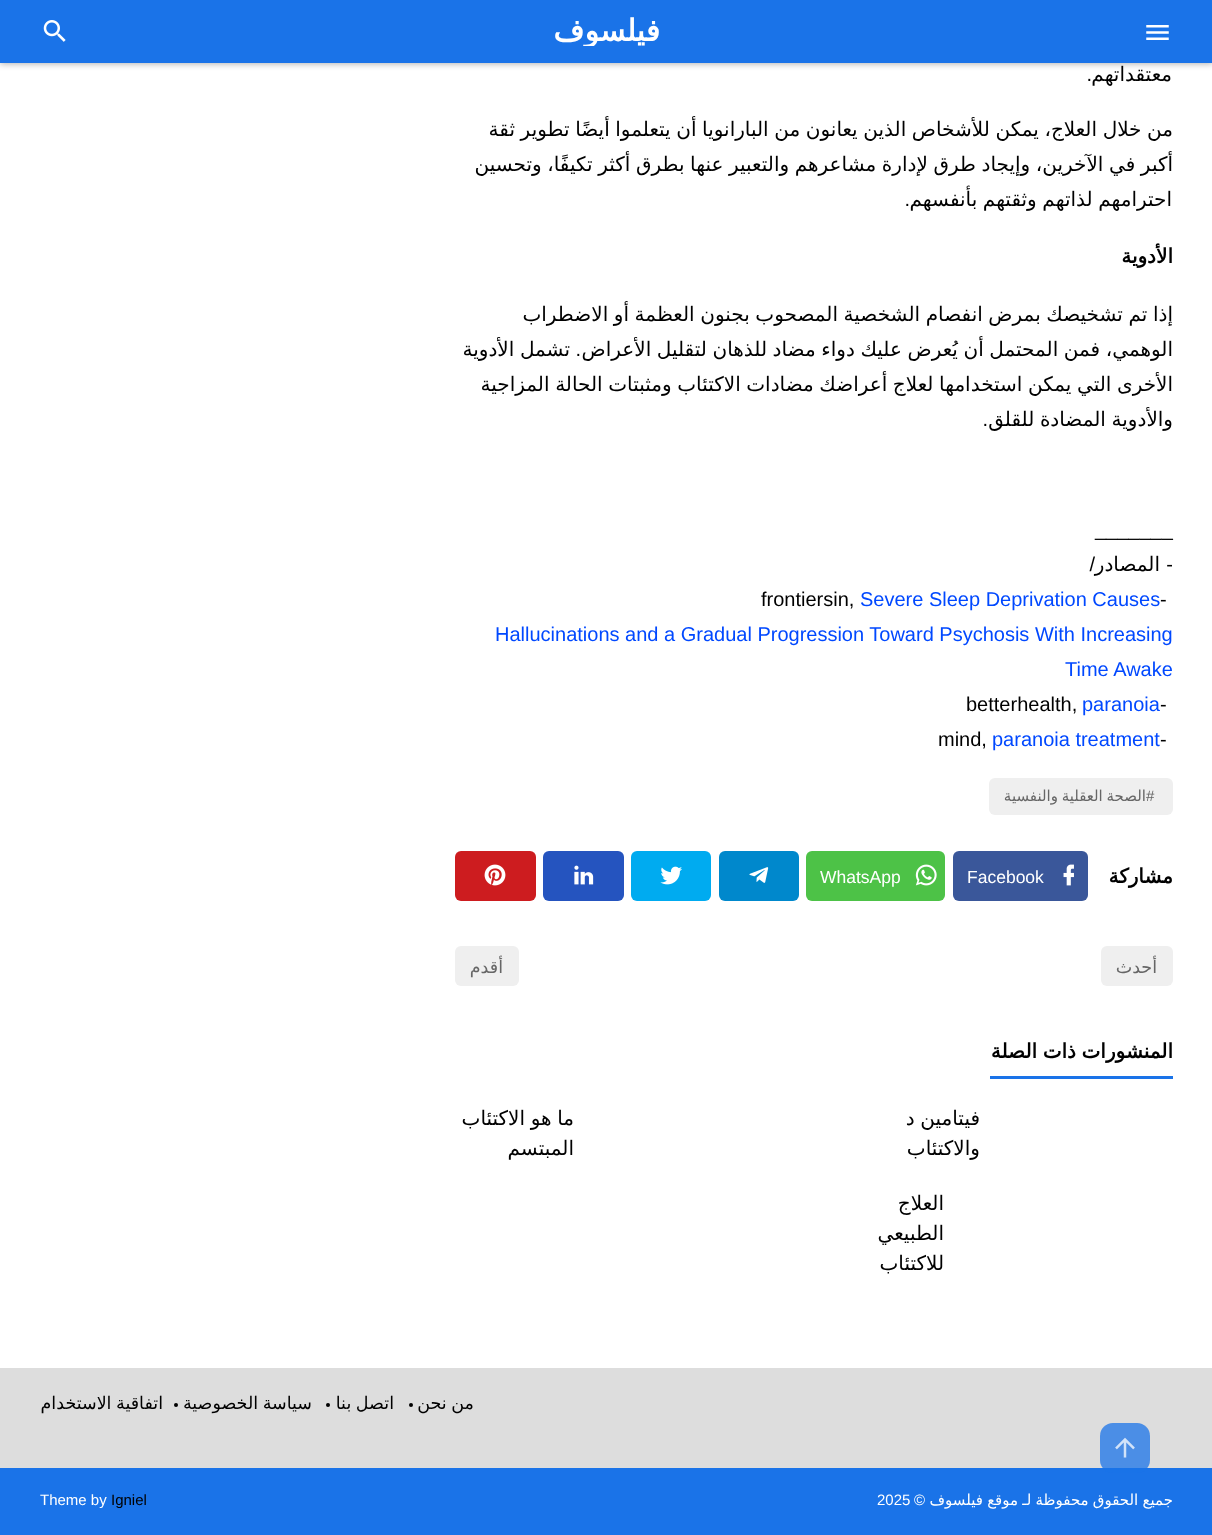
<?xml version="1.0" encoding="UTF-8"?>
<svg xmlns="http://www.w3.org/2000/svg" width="1212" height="1535">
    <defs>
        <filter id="blur1" x="-50%" y="-200%" width="200%" height="500%"><feGaussianBlur stdDeviation="3"/></filter>
        <clipPath id="clip1"><rect x="553" y="16" width="107" height="30"/></clipPath>
    </defs>
    <rect width="100%" height="100%" fill="#FFFFFF"/>
    <rect x="0" y="1" width="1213" height="63" fill="#000000" fill-opacity="0.3" filter="url(#blur1)"/>
    <rect x="0" y="0" width="1212" height="63" fill="#1A73E8"/>
    <image x="1146" y="25" width="23" height="15" href="img_01.png"/>
    <g clip-path="url(#clip1)">
        <text x="660" y="41" font-family="DejaVu Sans" font-size="30" font-weight="700" direction="rtl" fill="#FFFFFF">فيلسوف</text>
    </g>
    <image x="43" y="20" width="23" height="22" href="img_02.png"/>
    <text x="1172" y="81" font-family="DejaVu Sans" font-size="20" direction="rtl" fill="#000000">معتقداتهم</text>
    <text x="1092" y="81" font-family="Arimo" font-size="20" direction="rtl" fill="#000000">.</text>
    <text font-family="DejaVu Sans" font-size="20" direction="rtl" fill="#000000">
        <tspan x="1173" y="136" word-spacing="-0.75">من خلال العلاج، يمكن للأشخاص الذين يعانون من البارانويا أن يتعلموا أيضًا تطوير ثقة</tspan>
        <tspan x="1173" y="171" word-spacing="-0.75">أكبر في الآخرين، وإيجاد طرق لإدارة مشاعرهم والتعبير عنها بطرق أكثر تكيفًا، وتحسين</tspan>
    </text>
    <text x="1172" y="206" word-spacing="-0.75" font-family="DejaVu Sans" font-size="20" direction="rtl" fill="#000000">احترامهم لذاتهم وثقتهم بأنفسهم</text>
    <text x="910" y="206" font-family="Arimo" font-size="20" direction="rtl" fill="#000000">.</text>
    <text x="1173" y="263" font-family="DejaVu Sans" font-size="20" font-weight="700" direction="rtl" fill="#000000">الأدوية</text>
    <text font-family="DejaVu Sans" font-size="20" direction="rtl" fill="#000000">
        <tspan x="1173" y="321" word-spacing="-0.75">إذا تم تشخيصك بمرض انفصام الشخصية المصحوب بجنون العظمة أو الاضطراب</tspan>
        <tspan x="1173" y="356" word-spacing="-0.75">الوهمي، فمن المحتمل أن يُعرض عليك دواء مضاد للذهان لتقليل الأعراض</tspan>
    </text>
    <text x="581" y="356" font-family="Arimo" font-size="20" direction="rtl" fill="#000000">.</text>
    <text x="570" y="356" word-spacing="-0.75" font-family="DejaVu Sans" font-size="20" direction="rtl" fill="#000000">تشمل الأدوية</text>
    <text font-family="DejaVu Sans" font-size="20" direction="rtl" fill="#000000">
        <tspan x="1173" y="391" word-spacing="-0.75">الأخرى التي يمكن استخدامها لعلاج أعراضك مضادات الاكتئاب ومثبتات الحالة المزاجية</tspan>
        <tspan x="1173" y="426" word-spacing="-0.75">والأدوية المضادة للقلق</tspan>
    </text>
    <text x="988" y="426" font-family="Arimo" font-size="20" direction="rtl" fill="#000000">.</text>
    <text x="1095" y="536" font-family="Arimo" font-size="20" fill="#000000">_______</text>
    <text x="1173" y="571" font-family="Arimo" font-size="20" direction="rtl" fill="#000000">-</text>
    <text x="1095" y="571" font-family="Arimo" font-size="20" direction="rtl" fill="#000000">/</text>
    <text x="1160" y="571" font-family="DejaVu Sans" font-size="20" direction="rtl" fill="#000000">المصادر</text>
    <text x="1160" y="606" font-family="Arimo" font-size="20" fill="#000000">-</text>
    <text x="860" y="606" font-family="Arimo" font-size="20" fill="#0048FF">Severe Sleep Deprivation Causes</text>
    <text x="761" y="606" font-family="Arimo" font-size="20" fill="#000000">frontiersin,</text>
    <text x="495" y="641" font-family="Arimo" font-size="20" fill="#0048FF">Hallucinations and a Gradual Progression Toward Psychosis With Increasing</text>
    <text x="1065" y="676" font-family="Arimo" font-size="20" fill="#0048FF">Time Awake</text>
    <text x="1160" y="711" font-family="Arimo" font-size="20" fill="#000000">-</text>
    <text x="1082" y="711" font-family="Arimo" font-size="20" fill="#0048FF">paranoia</text>
    <text x="966" y="711" font-family="Arimo" font-size="20" fill="#000000">betterhealth,</text>
    <text x="1160" y="746" font-family="Arimo" font-size="20" fill="#000000">-</text>
    <text x="992" y="746" font-family="Arimo" font-size="20" fill="#0048FF">paranoia treatment</text>
    <text x="938" y="746" font-family="Arimo" font-size="20" fill="#000000">mind,</text>
    <rect x="989" y="778" width="184" height="37" rx="6" fill="#EFEFEF"/>
    <text x="1146" y="801" font-family="Arimo" font-size="15" fill="#666666">#</text>
    <text x="1146" y="801" word-spacing="-1" font-family="DejaVu Sans" font-size="15" direction="rtl" fill="#666666">الصحة العقلية والنفسية</text>
    <text x="1173" y="883" font-family="DejaVu Sans" font-size="20" font-weight="700" direction="rtl" fill="#000000">مشاركة</text>
    <rect x="953" y="851" width="135" height="50" rx="6" fill="#3A579A"/>
    <image x="1063" y="864" width="11" height="22" href="img_03.png"/>
    <text x="967" y="883" font-family="Arimo" font-size="17.5" fill="#FFFFFF">Facebook</text>
    <rect x="806" y="851" width="139" height="50" rx="6" fill="#4DC247"/>
    <image x="915" y="864" width="22" height="22" href="img_04.png"/>
    <text x="820" y="883" font-family="Arimo" font-size="17.5" fill="#FFFFFF">WhatsApp</text>
    <rect x="719" y="851" width="80" height="50" rx="6" fill="#0088CC"/>
    <image x="749" y="867" width="20" height="16" href="img_05.png"/>
    <rect x="631" y="851" width="80" height="50" rx="6" fill="#00ABF0"/>
    <image x="660" y="866" width="22" height="19" href="img_06.png"/>
    <rect x="543" y="851" width="81" height="50" rx="6" fill="#2554BF"/>
    <image x="574" y="865" width="20" height="20" href="img_07.png"/>
    <rect x="455" y="851" width="81" height="50" rx="6" fill="#CD1C1F"/>
    <image x="484" y="864" width="22" height="22" href="img_08.png"/>
    <rect x="1101" y="946" width="72" height="40" rx="6" fill="#EFEFEF"/>
    <text x="1157" y="973" font-family="DejaVu Sans" font-size="17.5" direction="rtl" fill="#666666">أحدث</text>
    <rect x="455" y="946" width="64" height="40" rx="6" fill="#EFEFEF"/>
    <text x="503" y="973" font-family="DejaVu Sans" font-size="17.5" direction="rtl" fill="#666666">أقدم</text>
    <rect x="990" y="1076" width="183" height="3" fill="#1A73E8"/>
    <text x="1173" y="1058" word-spacing="-0.75" font-family="DejaVu Sans" font-size="20" font-weight="700" direction="rtl" fill="#000000">المنشورات ذات الصلة</text>
    <text font-family="DejaVu Sans" font-size="20" direction="rtl" fill="#000000">
        <tspan x="980" y="1125" word-spacing="-0.75">فيتامين د</tspan>
        <tspan x="980" y="1155">والاكتئاب</tspan>
    </text>
    <text font-family="DejaVu Sans" font-size="20" direction="rtl" fill="#000000">
        <tspan x="574" y="1125" word-spacing="-0.75">ما هو الاكتئاب</tspan>
        <tspan x="574" y="1155">المبتسم</tspan>
    </text>
    <text font-family="DejaVu Sans" font-size="20" direction="rtl" fill="#000000">
        <tspan x="944" y="1210">العلاج</tspan>
        <tspan x="944" y="1240">الطبيعي</tspan>
        <tspan x="944" y="1270">للاكتئاب</tspan>
    </text>
    <rect x="0" y="1368" width="1212" height="100" fill="#DDDDDD"/>
    <text x="474" y="1409" word-spacing="-1" font-family="DejaVu Sans" font-size="17.5" direction="rtl" fill="#000000">من نحن</text>
    <circle cx="411" cy="1405" r="2" fill="#000000"/>
    <text x="394" y="1409" word-spacing="-1" font-family="DejaVu Sans" font-size="17.5" direction="rtl" fill="#000000">اتصل بنا</text>
    <circle cx="328" cy="1405" r="2" fill="#000000"/>
    <text x="312" y="1409" word-spacing="-1" font-family="DejaVu Sans" font-size="17.5" direction="rtl" fill="#000000">سياسة الخصوصية</text>
    <circle cx="176" cy="1405" r="2" fill="#000000"/>
    <text x="163" y="1409" word-spacing="-1" font-family="DejaVu Sans" font-size="17.5" direction="rtl" fill="#000000">اتفاقية الاستخدام</text>
    <rect x="0" y="1468" width="1212" height="67" fill="#1A73E8"/>
    <rect x="1100" y="1423" width="50" height="50" rx="13" fill="#1A73E8" fill-opacity="0.75"/>
    <image x="1115" y="1437" width="20" height="21" href="img_09.png"/>
    <text x="1173" y="1505" word-spacing="-0.5" font-family="DejaVu Sans" font-size="15" direction="rtl" fill="#FFFFFF">جميع الحقوق محفوظة لـ موقع فيلسوف</text>
    <text x="925" y="1505" font-family="Arimo" font-size="15" direction="rtl" fill="#FFFFFF">©</text>
    <text x="877" y="1505" font-family="Arimo" font-size="15" fill="#FFFFFF">2025</text>
    <text x="111" y="1505" font-family="Arimo" font-size="15" fill="#000000">Igniel</text>
    <text x="40" y="1505" font-family="Arimo" font-size="15" fill="#FFFFFF">Theme by</text>
</svg>
